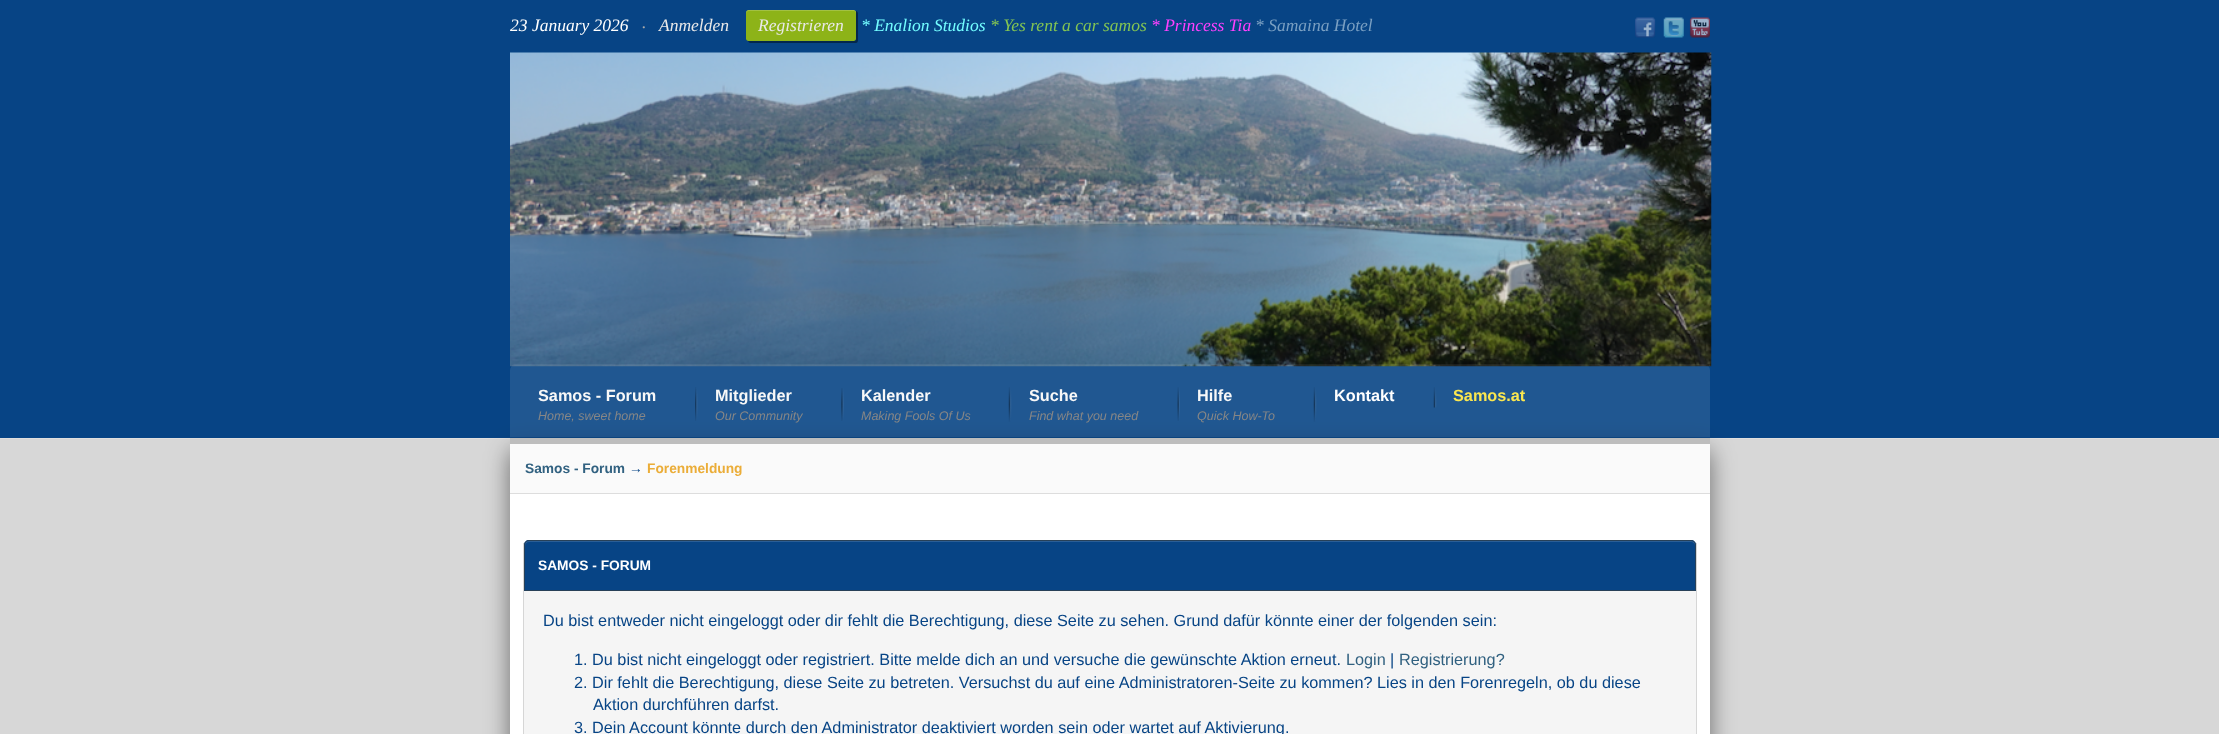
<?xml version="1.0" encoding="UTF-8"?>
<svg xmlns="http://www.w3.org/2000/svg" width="2219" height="734">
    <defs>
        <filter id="blur1" x="-50%" y="-200%" width="200%" height="500%"><feGaussianBlur stdDeviation="12.5"/></filter>
    </defs>
    <rect width="100%" height="100%" fill="#D7D7D7"/>
    <rect x="0" y="438" width="2219" height="1" fill="#DFDFDF"/>
    <rect x="0" y="0" width="2219" height="438" fill="#074485"/>
    <text x="510" y="31" font-family="Liberation Serif" font-size="17.5" font-style="italic" fill="#FFFFFF">23 January 2026</text>
    <text x="642" y="28" font-family="Liberation Serif" font-size="17.5" font-style="italic" fill="#AAAAAA">.</text>
    <text x="659" y="31" font-family="Liberation Serif" font-size="17.5" font-style="italic" fill="#E9E9E9">Anmelden</text>
    <path d="M 748 41 C 748.5 42 749.5 43 750.5 43 H 760 V 11 H 759 V 41 Z" fill="#04274C"/>
    <path d="M 748.5 10 H 759 V 41 H 748.5 C 747 41 746 40 746 38.5 V 12.5 C 746 11 747 10 748.5 10 Z" fill="#8DB318"/>
    <path d="M 760 41 V 43 H 856 C 857 43 858 42 858 40 V 14 C 858 12 857 11 856 11 V 12 V 39 C 856 40 855 41 854 41 Z" fill="#04274C"/>
    <path d="M 759 10 H 853.5 C 855 10 856 11 856 12.5 V 38.5 C 856 40 855 41 853.5 41 H 759 Z" fill="#8DB318"/>
    <text x="758" y="31" font-family="Liberation Serif" font-size="17.5" font-style="italic" fill="#E9E9E9">Registrieren</text>
    <path d="M 749 11 H 759 V 10 H 752 C 748 10 746 9.5 746 14 C 746 12 747 11 749 11 Z" fill="#FFFFFF" fill-opacity="0.19"/>
    <path d="M 759 11 H 854 C 855 11 856 12 856 14 V 12 C 856 11 855 10 854 10 H 759 Z" fill="#FFFFFF" fill-opacity="0.19"/>
    <text x="861" y="31" font-family="Liberation Serif" font-size="17.5" font-style="italic" fill="#73FDFF">* Enalion Studios</text>
    <text x="990" y="31" font-family="Liberation Serif" font-size="17.5" font-style="italic" fill="#83C553">* Yes rent a car samos</text>
    <text x="1151" y="31" font-family="Liberation Serif" font-size="17.5" font-style="italic" fill="#FF40FF">* Princess Tia</text>
    <text x="1255" y="31" font-family="Liberation Serif" font-size="17.5" font-style="italic" fill="#799FC2">* Samaina Hotel</text>
    <image x="1635" y="17" width="21" height="21" href="img_01.png"/>
    <image x="1663" y="17" width="21" height="21" href="img_02.png"/>
    <image x="1689" y="17" width="21" height="21" href="img_03.png"/>
    <image x="510" y="52" width="1202" height="315" href="img_04.png"/>
    <path d="M 515 364 C 512 364 510 367 510 370 C 510 367 512 365 515 365 H 1705 C 1708 365 1710 367 1710 370 C 1710 367 1708 364 1705 364 Z" fill="#FFFFFF" fill-opacity="0.07"/>
    <rect x="510" y="450" width="1200" height="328" rx="6" fill="#000000" fill-opacity="0.5" filter="url(#blur1)"/>
    <image x="510" y="365" width="1200" height="73" href="img_05.png"/>
    <image x="695" y="387" width="3" height="34" href="img_06.png"/>
    <text x="538" y="401" font-family="Liberation Sans" font-size="16.25" font-weight="700" fill="#F8F8F8">Samos - Forum</text>
    <text x="538" y="420" font-family="Liberation Sans" font-size="12.5" font-style="italic" fill="#868686">Home, sweet home</text>
    <image x="841" y="388" width="3" height="33" href="img_07.png"/>
    <text x="715" y="401" font-family="Liberation Sans" font-size="16.25" font-weight="700" fill="#F8F8F8">Mitglieder</text>
    <text x="715" y="420" font-family="Liberation Sans" font-size="12.5" font-style="italic" fill="#868686">Our Community</text>
    <image x="1008" y="387" width="4" height="35" href="img_08.png"/>
    <text x="861" y="401" font-family="Liberation Sans" font-size="16.25" font-weight="700" fill="#F8F8F8">Kalender</text>
    <text x="861" y="420" font-family="Liberation Sans" font-size="12.5" font-style="italic" fill="#868686">Making Fools Of Us</text>
    <image x="1177" y="387" width="3" height="34" href="img_09.png"/>
    <text x="1029" y="401" font-family="Liberation Sans" font-size="16.25" font-weight="700" fill="#F8F8F8">Suche</text>
    <text x="1029" y="420" font-family="Liberation Sans" font-size="12.5" font-style="italic" fill="#868686">Find what you need</text>
    <image x="1313" y="387" width="4" height="35" href="img_08.png"/>
    <text x="1197" y="401" font-family="Liberation Sans" font-size="16.25" font-weight="700" fill="#F8F8F8">Hilfe</text>
    <text x="1197" y="420" font-family="Liberation Sans" font-size="12.5" font-style="italic" fill="#868686">Quick How-To</text>
    <image x="1433" y="387" width="4" height="21" href="img_10.png"/>
    <text x="1334" y="401" font-family="Liberation Sans" font-size="16.25" font-weight="700" fill="#FFFFFF">Kontakt</text>
    <text x="1453" y="401" font-family="Liberation Sans" font-size="16.25" font-weight="700" fill="#FBE74F">Samos.at</text>
    <rect x="510" y="494" width="1200" height="240" fill="#FFFFFF"/>
    <rect x="510" y="438" width="1200" height="6" fill="#BDBDBD"/>
    <rect x="510" y="444" width="1200" height="49" fill="#FAFAFA"/>
    <rect x="510" y="493" width="1200" height="1" fill="#DDDDDD"/>
    <text x="525" y="473" font-family="Liberation Sans" font-size="13.75" font-weight="700" fill="#316180">Samos - Forum</text>
    <text x="629" y="473" font-family="Liberation Sans" font-size="13.75" font-weight="700" fill="#074485">→</text>
    <text x="647" y="473" font-family="Liberation Sans" font-size="13.75" font-weight="700" fill="#EBAD38">Forenmeldung</text>
    <rect x="1696" y="543" width="1" height="191" fill="#D6D6D6"/>
    <rect x="523" y="543" width="1" height="191" fill="#D6D6D6"/>
    <path d="M 529 540 H 1691 C 1694 540 1696 542 1696 545 V 591 H 524 V 545 C 524 542 526 540 529 540 Z" fill="#074485"/>
    <path d="M 529 542 H 1691 C 1693 542 1695 544 1695 546 C 1695 543 1694 541 1691 541 H 529 C 526 541 525 543 525 546 C 525 544 527 542 529 542 Z" fill="#2A5E96"/>
    <path d="M 529 540.5 H 1691 C 1693.5 540.5 1695.5 542.5 1695.5 545 V 590.5 H 524.5 V 545 C 524.5 542.5 526.5 540.5 529 540.5 Z" fill="none" stroke="#284158"/>
    <text x="538" y="570" font-family="Liberation Sans" font-size="13.75" font-weight="700" fill="#FFFFFF">SAMOS - FORUM</text>
    <rect x="524" y="591" width="1172" height="143" fill="#F5F5F5"/>
    <text x="543" y="626" font-family="Liberation Sans" font-size="16.25" fill="#074485">Du bist entweder nicht eingeloggt oder dir fehlt die Berechtigung, diese Seite zu sehen. Grund dafür könnte einer der folgenden sein:</text>
    <text x="574" y="665" font-family="Liberation Sans" font-size="16.25" fill="#074485">1. Du bist nicht eingeloggt oder registriert. Bitte melde dich an und versuche die gewünschte Aktion erneut.</text>
    <text x="1346" y="665" font-family="Liberation Sans" font-size="16.25" fill="#316180">Login</text>
    <text x="1390" y="665" font-family="Liberation Sans" font-size="16.25" fill="#074485">|</text>
    <text x="1399" y="665" font-family="Liberation Sans" font-size="16.25" fill="#316180">Registrierung?</text>
    <text x="574" y="688" font-family="Liberation Sans" font-size="16.25" fill="#074485">2. Dir fehlt die Berechtigung, diese Seite zu betreten. Versuchst du auf eine Administratoren-Seite zu kommen? Lies in den Forenregeln, ob du diese</text>
    <text x="593" y="710" font-family="Liberation Sans" font-size="16.25" fill="#074485">Aktion durchführen darfst.</text>
    <text x="574" y="733" font-family="Liberation Sans" font-size="16.25" fill="#074485">3. Dein Account könnte durch den Administrator deaktiviert worden sein oder wartet auf Aktivierung.</text>
</svg>
